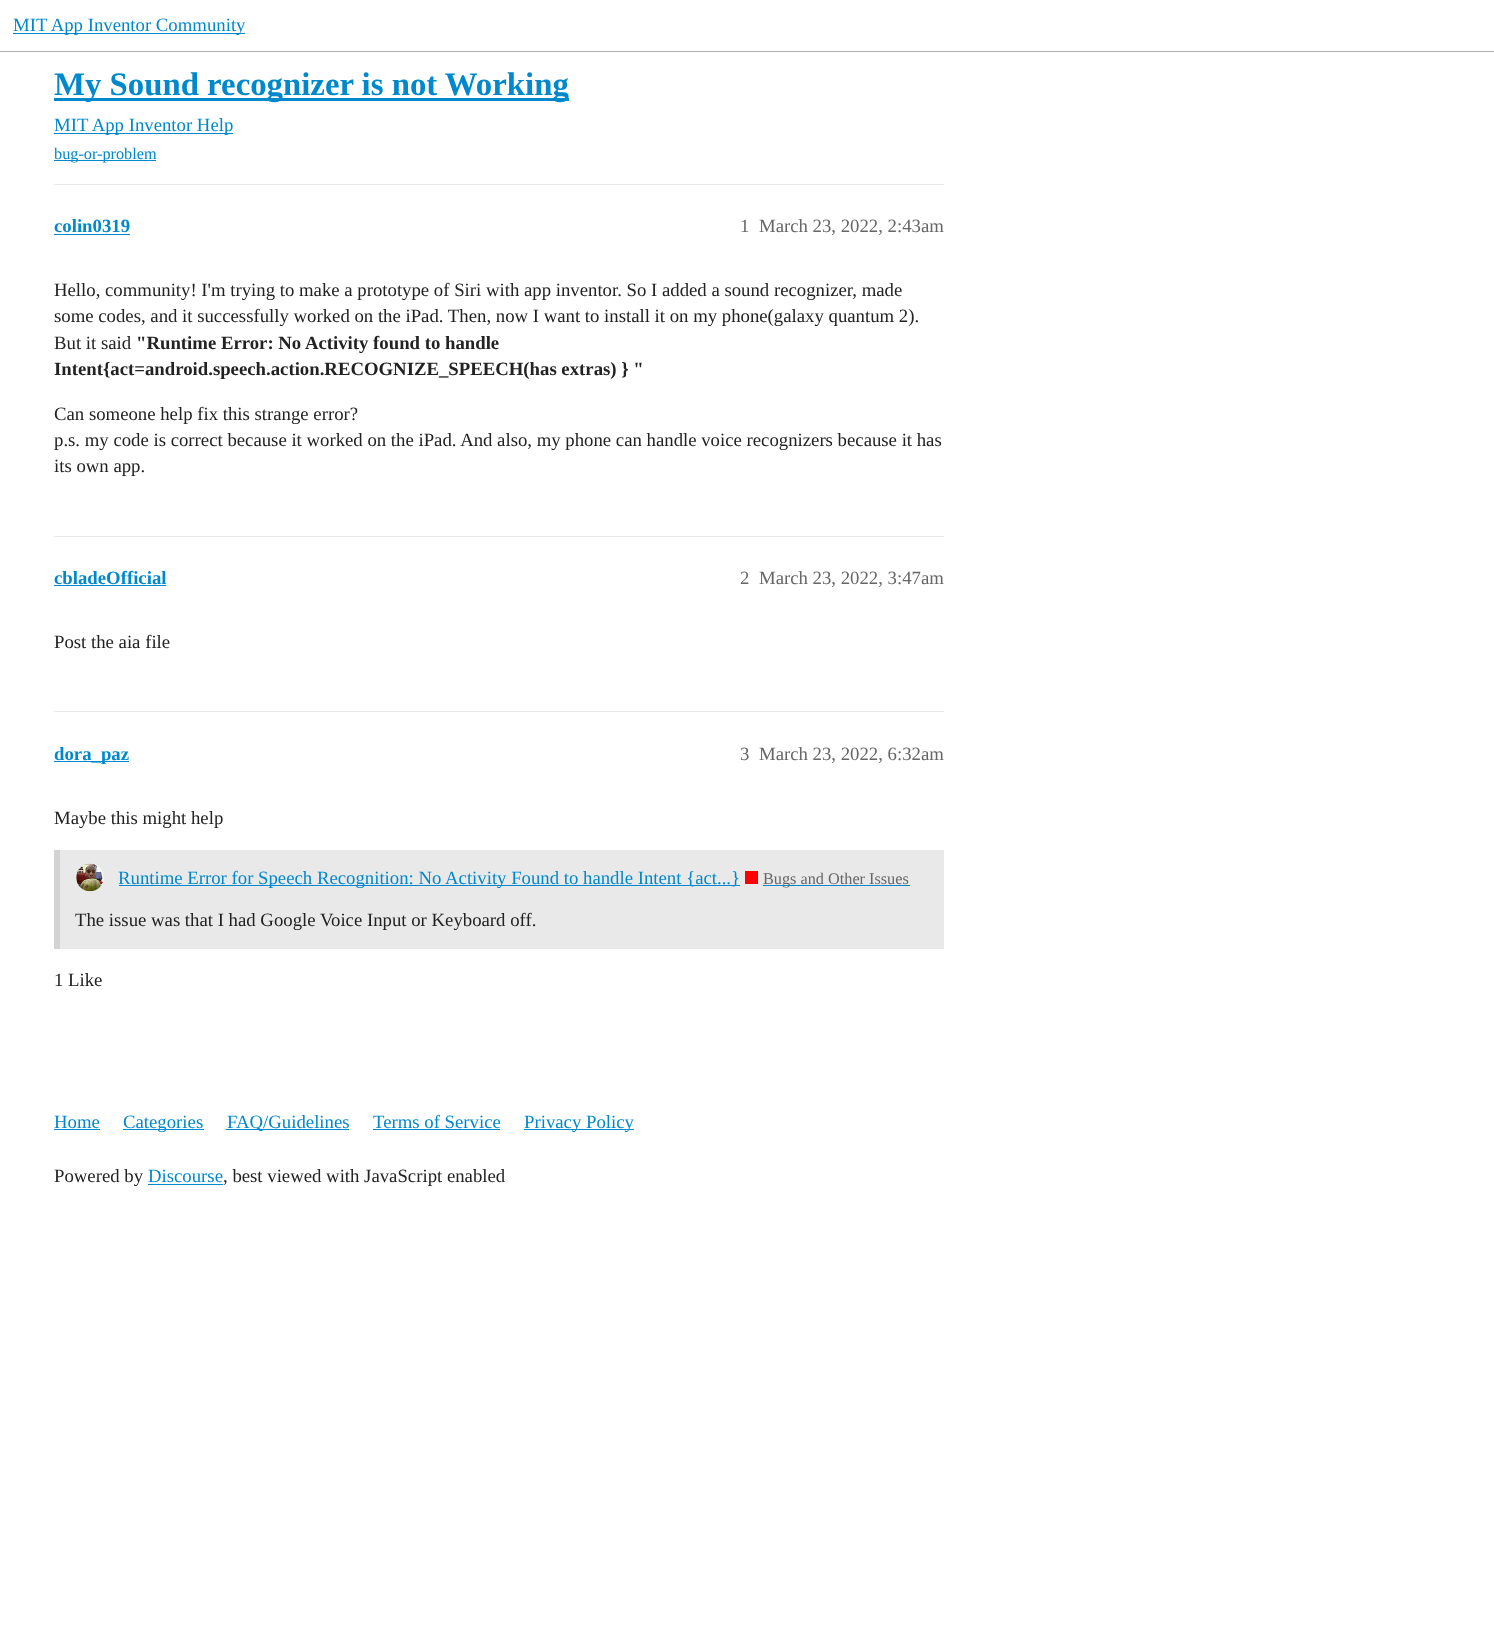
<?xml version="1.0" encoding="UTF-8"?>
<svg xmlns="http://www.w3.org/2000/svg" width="1494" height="1626">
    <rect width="100%" height="100%" fill="#FFFFFF"/>
    <rect x="0" y="51" width="1494" height="1" fill="#AFAFAF"/>
    <rect x="13" y="33" width="232" height="1" fill="#0088CC"/>
    <text x="13" y="31" font-family="Liberation Serif" font-size="18.75" fill="#0088CC">MIT App Inventor Community</text>
    <rect x="54" y="98" width="515" height="3" fill="#0088CC"/>
    <text x="54" y="95" font-family="Liberation Serif" font-size="32.8" font-weight="700" fill="#0088CC">My Sound recognizer is not Working</text>
    <rect x="54" y="133" width="179" height="1" fill="#0088CC"/>
    <text x="54" y="131" font-family="Liberation Serif" font-size="18.75" fill="#0088CC">MIT App Inventor Help</text>
    <rect x="54" y="160" width="102" height="1" fill="#0088CC"/>
    <text x="54" y="159" font-family="Liberation Serif" font-size="16.25" fill="#0088CC">bug-or-problem</text>
    <rect x="54" y="184" width="890" height="1" fill="#E9E9E9"/>
    <text x="54" y="232" font-family="Liberation Serif" font-size="18.75" font-weight="700" fill="#0088CC">colin0319</text>
    <rect x="54" y="234" width="76" height="1" fill="#0088CC"/>
    <text x="740" y="232" font-family="Liberation Serif" font-size="18.75" fill="#666666">1</text>
    <text x="759" y="232" font-family="Liberation Serif" font-size="18.75" fill="#666666">March 23, 2022, 2:43am</text>
    <text font-family="Liberation Serif" font-size="18.75" fill="#222222">
        <tspan x="54" y="296">Hello, community! I'm trying to make a prototype of Siri with app inventor. So I added a sound recognizer, made</tspan>
        <tspan x="54" y="322">some codes, and it successfully worked on the iPad. Then, now I want to install it on my phone(galaxy quantum 2).</tspan>
        <tspan x="54" y="349">But it said</tspan>
    </text>
    <text x="136" y="349" font-family="Liberation Serif" font-size="18.75" font-weight="700" fill="#222222">"Runtime Error: No Activity found to handle</text>
    <text x="54" y="375" font-family="Liberation Serif" font-size="18.75" font-weight="700" fill="#222222">Intent{act=android.speech.action.RECOGNIZE_SPEECH(has extras) } "</text>
    <text font-family="Liberation Serif" font-size="18.75" fill="#222222">
        <tspan x="54" y="420">Can someone help fix this strange error?</tspan>
        <tspan x="54" y="446">p.s. my code is correct because it worked on the iPad. And also, my phone can handle voice recognizers because it has</tspan>
        <tspan x="54" y="472">its own app.</tspan>
    </text>
    <rect x="54" y="536" width="890" height="1" fill="#E9E9E9"/>
    <text x="54" y="584" font-family="Liberation Serif" font-size="18.75" font-weight="700" fill="#0088CC">cbladeOfficial</text>
    <rect x="54" y="585" width="112" height="1" fill="#0088CC"/>
    <text x="740" y="584" font-family="Liberation Serif" font-size="18.75" fill="#666666">2</text>
    <text x="759" y="584" font-family="Liberation Serif" font-size="18.75" fill="#666666">March 23, 2022, 3:47am</text>
    <text x="54" y="648" font-family="Liberation Serif" font-size="18.75" fill="#222222">Post the aia file</text>
    <rect x="54" y="711" width="890" height="1" fill="#E9E9E9"/>
    <rect x="54" y="761" width="75" height="1" fill="#0088CC"/>
    <text x="54" y="760" font-family="Liberation Serif" font-size="18.75" font-weight="700" fill="#0088CC">dora_paz</text>
    <text x="740" y="760" font-family="Liberation Serif" font-size="18.75" fill="#666666">3</text>
    <text x="759" y="760" font-family="Liberation Serif" font-size="18.75" fill="#666666">March 23, 2022, 6:32am</text>
    <text x="54" y="824" font-family="Liberation Serif" font-size="18.75" fill="#222222">Maybe this might help</text>
    <rect x="60" y="850" width="884" height="99" fill="#E9E9E9"/>
    <rect x="54" y="850" width="6" height="99" fill="#D3D3D3"/>
    <image x="76" y="863" width="28" height="29" href="img_01.png"/>
    <rect x="119" y="885" width="621" height="1" fill="#0088CC"/>
    <text x="118" y="884" font-family="Liberation Serif" font-size="18.75" fill="#0088CC">Runtime Error for Speech Recognition: No Activity Found to handle Intent {act...}</text>
    <rect x="745" y="871" width="13" height="13" fill="#FF0000"/>
    <rect x="763" y="885" width="147" height="1" fill="#0088CC"/>
    <text x="763" y="884" font-family="Liberation Serif" font-size="16.25" fill="#666666">Bugs and Other Issues</text>
    <text x="75" y="926" font-family="Liberation Serif" font-size="18.75" fill="#222222">The issue was that I had Google Voice Input or Keyboard off.</text>
    <text x="54" y="986" font-family="Liberation Serif" font-size="18.75" fill="#222222">1 Like</text>
    <text x="54" y="1128" font-family="Liberation Serif" font-size="18.75" fill="#0088CC">Home</text>
    <rect x="54" y="1129" width="46" height="1" fill="#0088CC"/>
    <rect x="123" y="1129" width="81" height="1" fill="#0088CC"/>
    <text x="123" y="1128" font-family="Liberation Serif" font-size="18.75" fill="#0088CC">Categories</text>
    <rect x="226" y="1129" width="123" height="1" fill="#0088CC"/>
    <text x="227" y="1128" font-family="Liberation Serif" font-size="18.75" fill="#0088CC">FAQ/Guidelines</text>
    <text x="373" y="1128" font-family="Liberation Serif" font-size="18.75" fill="#0088CC">Terms of Service</text>
    <rect x="373" y="1129" width="127" height="1" fill="#0088CC"/>
    <rect x="524" y="1129" width="110" height="1" fill="#0088CC"/>
    <text x="524" y="1128" font-family="Liberation Serif" font-size="18.75" fill="#0088CC">Privacy Policy</text>
    <text x="54" y="1182" font-family="Liberation Serif" font-size="18.75" fill="#222222">Powered by</text>
    <text x="148" y="1182" font-family="Liberation Serif" font-size="18.75" fill="#0088CC">Discourse</text>
    <rect x="148" y="1184" width="75" height="1" fill="#0088CC"/>
    <text x="223" y="1182" font-family="Liberation Serif" font-size="18.75" fill="#222222">, best viewed with JavaScript enabled</text>
</svg>
